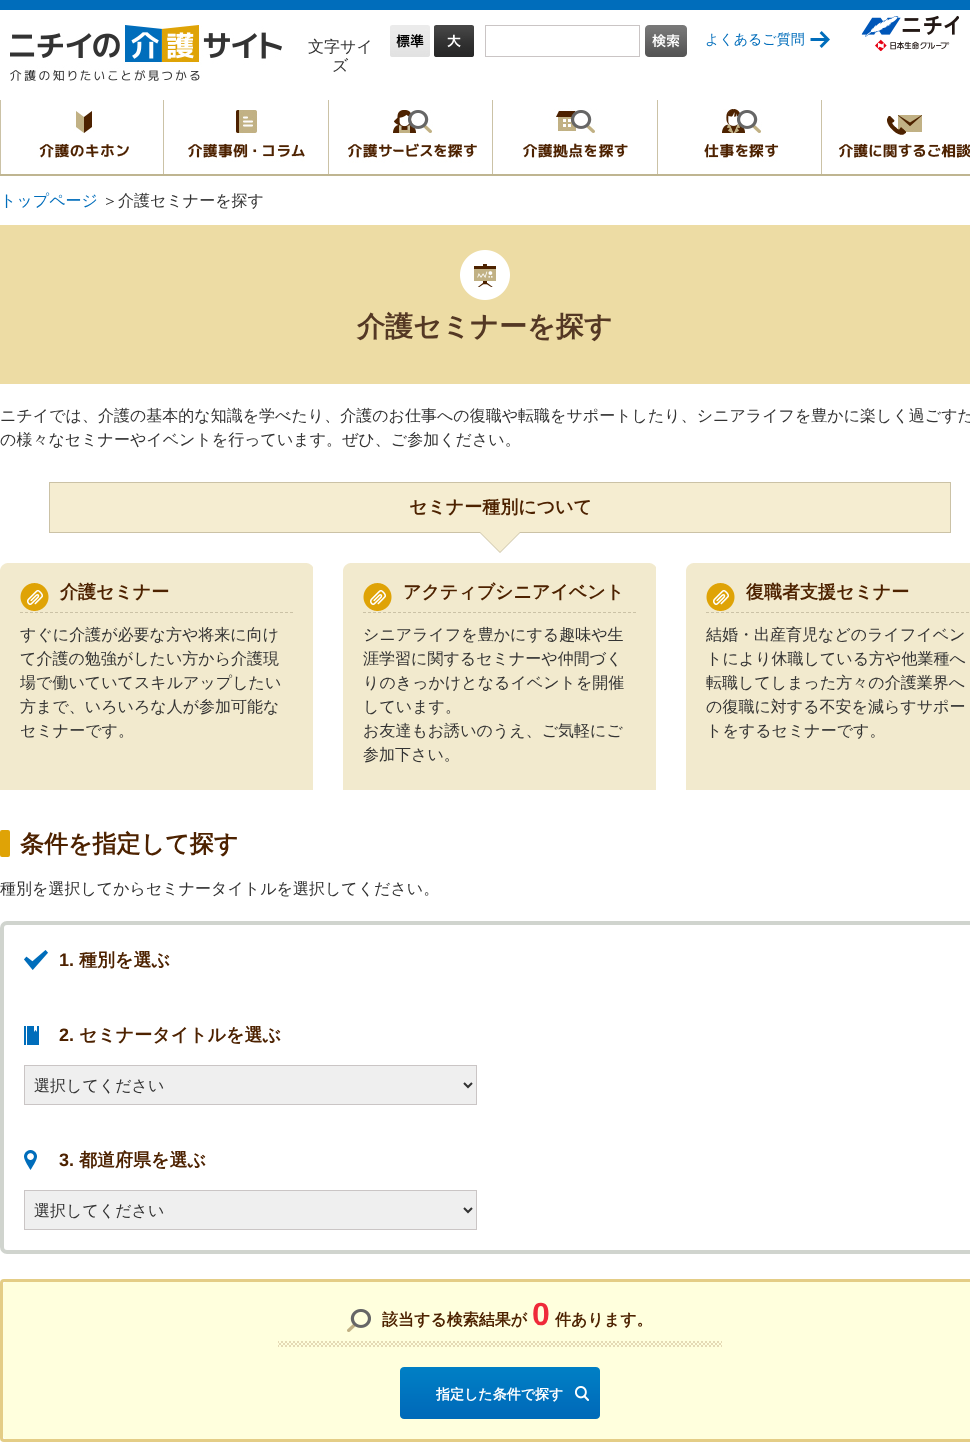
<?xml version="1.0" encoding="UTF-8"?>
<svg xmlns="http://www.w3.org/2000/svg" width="970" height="1446">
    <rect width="100%" height="100%" fill="#FFFFFF"/>
    <rect x="0" y="0" width="970" height="10" fill="#006DBB"/>
    <image x="861" y="15" width="98" height="37" href="img_01.png"/>
    <image x="10" y="25" width="272" height="56" href="img_02.png"/>
    <text x="308" y="52" font-family="WenQuanYi Zen Hei" font-size="16" font-weight="500" fill="#333333">文字サイ</text>
    <text x="332" y="71" font-family="WenQuanYi Zen Hei" font-size="16" font-weight="500" fill="#333333">ズ</text>
    <image x="390" y="25" width="40" height="32" href="img_03.png"/>
    <image x="434" y="25" width="40" height="32" href="img_04.png"/>
    <rect x="485.5" y="25.5" width="154" height="31" fill="none" stroke="#CAC5C5"/>
    <image x="645" y="25" width="42" height="32" href="img_05.png"/>
    <image x="810" y="31" width="20" height="17" href="img_06.png"/>
    <text x="705" y="44" font-family="WenQuanYi Zen Hei" font-size="14" font-weight="500" fill="#006DBB">よくあるご質問</text>
    <rect x="0" y="174" width="970" height="2" fill="#BFB591"/>
    <image x="37" y="111" width="92" height="47" href="img_07.png"/>
    <rect x="163" y="100" width="1" height="74" fill="#CBC2A6"/>
    <rect x="0" y="100" width="1" height="74" fill="#CBC2A6"/>
    <image x="188" y="110" width="117" height="52" href="img_08.png"/>
    <rect x="328" y="100" width="1" height="74" fill="#CBC2A6"/>
    <image x="348" y="110" width="129" height="53" href="img_09.png"/>
    <rect x="492" y="100" width="1" height="74" fill="#CBC2A6"/>
    <image x="523" y="108" width="105" height="52" href="img_10.png"/>
    <rect x="657" y="100" width="1" height="74" fill="#CBC2A6"/>
    <image x="704" y="109" width="75" height="53" href="img_11.png"/>
    <rect x="821" y="100" width="1" height="74" fill="#CBC2A6"/>
    <image x="839" y="115" width="131" height="45" href="img_12.png"/>
    <text x="0" y="206" font-family="WenQuanYi Zen Hei" font-size="16" font-weight="500" fill="#006DBB">トップページ</text>
    <text x="102" y="206" font-family="WenQuanYi Zen Hei" font-size="16" font-weight="500" fill="#333333">＞介護セミナーを探す</text>
    <rect x="0" y="225" width="970" height="159" fill="#EDDCA4"/>
    <image x="460" y="250" width="50" height="50" href="img_13.png"/>
    <text x="357" y="336" font-family="WenQuanYi Zen Hei" font-size="28" font-weight="700" fill="#543824">介護セミナーを探す</text>
    <text font-family="WenQuanYi Zen Hei" font-size="16" font-weight="500" fill="#333333">
        <tspan x="0" y="421">ニチイでは、介護の基本的な知識を学べたり、介護のお仕事への復職や転職をサポートしたり、シニアライフを豊かに楽しく過ごすた</tspan>
        <tspan x="0" y="445">の様々なセミナーやイベントを行っています。ぜひ、ご参加ください。</tspan>
    </text>
    <rect x="49.5" y="482.5" width="901" height="50" fill="#F5EDD1" stroke="#CBC2A6"/>
    <text x="409" y="513" font-family="WenQuanYi Zen Hei" font-size="18" font-weight="700" fill="#4D2200">セミナー種別について</text>
    <path d="M 479 532 H 521 L 500 553 Z" fill="#CBC2A6"/>
    <path d="M 480 532 H 520 L 500 552 Z" fill="#F5EDD1"/>
    <image x="0" y="563" width="313" height="227" href="img_14.png"/>
    <text x="60" y="598" font-family="WenQuanYi Zen Hei" font-size="18" font-weight="700" fill="#4D2200">介護セミナー</text>
    <path d="M 20 612.5 H 293" fill="none" stroke="#CBC2A6" stroke-dasharray="3 2"/>
    <text font-family="WenQuanYi Zen Hei" font-size="16" font-weight="500" fill="#333333">
        <tspan x="20" y="640">すぐに介護が必要な方や将来に向け</tspan>
        <tspan x="20" y="664">て介護の勉強がしたい方から介護現</tspan>
        <tspan x="20" y="688">場で働いていてスキルアップしたい</tspan>
        <tspan x="20" y="712">方まで、いろいろな人が参加可能な</tspan>
        <tspan x="20" y="736">セミナーです。</tspan>
    </text>
    <image x="343" y="563" width="313" height="227" href="img_14.png"/>
    <text x="403" y="598" font-family="WenQuanYi Zen Hei" font-size="18" font-weight="700" fill="#4D2200">アクティブシニアイベント</text>
    <path d="M 363 612.5 H 636" fill="none" stroke="#CBC2A6" stroke-dasharray="3 2"/>
    <text font-family="WenQuanYi Zen Hei" font-size="16" font-weight="500" fill="#333333">
        <tspan x="363" y="640">シニアライフを豊かにする趣味や生</tspan>
        <tspan x="363" y="664">涯学習に関するセミナーや仲間づく</tspan>
        <tspan x="363" y="688">りのきっかけとなるイベントを開催</tspan>
        <tspan x="363" y="712">しています。</tspan>
        <tspan x="363" y="736">お友達もお誘いのうえ、ご気軽にご</tspan>
        <tspan x="363" y="760">参加下さい。</tspan>
    </text>
    <image x="686" y="563" width="284" height="227" href="img_15.png"/>
    <text x="746" y="598" font-family="WenQuanYi Zen Hei" font-size="18" font-weight="700" fill="#4D2200">復職者支援セミナー</text>
    <path d="M 706 612.5 H 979" fill="none" stroke="#CBC2A6" stroke-dasharray="3 2"/>
    <text font-family="WenQuanYi Zen Hei" font-size="16" font-weight="500" fill="#333333">
        <tspan x="706" y="640">結婚・出産育児などのライフイベン</tspan>
        <tspan x="706" y="664">トにより休職している方や他業種へ</tspan>
        <tspan x="706" y="688">転職してしまった方々の介護業界へ</tspan>
        <tspan x="706" y="712">の復職に対する不安を減らすサポー</tspan>
        <tspan x="706" y="736">トをするセミナーです。</tspan>
    </text>
    <rect x="0" y="830" width="10" height="27" rx="2" fill="#DFA306"/>
    <text x="20" y="852" font-family="WenQuanYi Zen Hei" font-size="24" font-weight="700" fill="#4D2200">条件を指定して探す</text>
    <text x="0" y="894" font-family="WenQuanYi Zen Hei" font-size="16" font-weight="500" fill="#333333">種別を選択してからセミナータイトルを選択してください。</text>
    <rect x="2" y="923" width="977" height="329" rx="5" fill="none" stroke="#D0D4CE" stroke-width="4"/>
    <image x="24" y="950" width="24" height="20" href="img_16.png"/>
    <text x="59" y="966" font-family="Liberation Sans" font-size="18" font-weight="700" fill="#4D2200">1.</text>
    <text x="79" y="966" font-family="WenQuanYi Zen Hei" font-size="18" font-weight="700" fill="#4D2200">種別を選ぶ</text>
    <image x="24" y="1026" width="15" height="19" href="img_17.png"/>
    <text x="59" y="1041" font-family="Liberation Sans" font-size="18" font-weight="700" fill="#4D2200">2.</text>
    <text x="79" y="1041" font-family="WenQuanYi Zen Hei" font-size="18" font-weight="700" fill="#4D2200">セミナータイトルを選ぶ</text>
    <rect x="24.5" y="1065.5" width="452" height="39" fill="#EFEFEF" stroke="#CAC5C5"/>
    <path d="M 464 1083 L 468 1087 L 472 1083" fill="none" stroke="#333333" stroke-width="2"/>
    <text x="34" y="1091" font-family="WenQuanYi Zen Hei" font-size="16" font-weight="500" fill="#333333">選択してください</text>
    <image x="24" y="1150" width="13" height="20" href="img_18.png"/>
    <text x="59" y="1166" font-family="Liberation Sans" font-size="18" font-weight="700" fill="#4D2200">3.</text>
    <text x="79" y="1166" font-family="WenQuanYi Zen Hei" font-size="18" font-weight="700" fill="#4D2200">都道府県を選ぶ</text>
    <rect x="24.5" y="1190.5" width="452" height="39" fill="#EFEFEF" stroke="#CAC5C5"/>
    <path d="M 464 1208 L 468 1212 L 472 1208" fill="none" stroke="#333333" stroke-width="2"/>
    <text x="34" y="1216" font-family="WenQuanYi Zen Hei" font-size="16" font-weight="500" fill="#333333">選択してください</text>
    <rect x="1.5" y="1280.5" width="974" height="160" rx="2.5" fill="none" stroke="#E4CD86" stroke-width="3"/>
    <rect x="3" y="1282" width="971" height="157" rx="4" fill="#FFFFDD"/>
    <image x="278" y="1341" width="444" height="6" href="img_19.png"/>
    <image x="347" y="1309" width="24" height="23" href="img_20.png"/>
    <text x="382" y="1325" font-family="WenQuanYi Zen Hei" font-size="16" font-weight="700" fill="#4D2200">該当する検索結果が</text>
    <text x="532" y="1325" font-family="Liberation Sans" font-size="32" font-weight="700" fill="#EF2A39">0</text>
    <text x="555" y="1325" font-family="WenQuanYi Zen Hei" font-size="16" font-weight="700" fill="#4D2200">件あります。</text>
    <image x="400" y="1367" width="200" height="52" href="img_21.png"/>
    <text x="436" y="1399" font-family="WenQuanYi Zen Hei" font-size="14" font-weight="700" fill="#FFFFFF">指定した条件で探す</text>
</svg>
